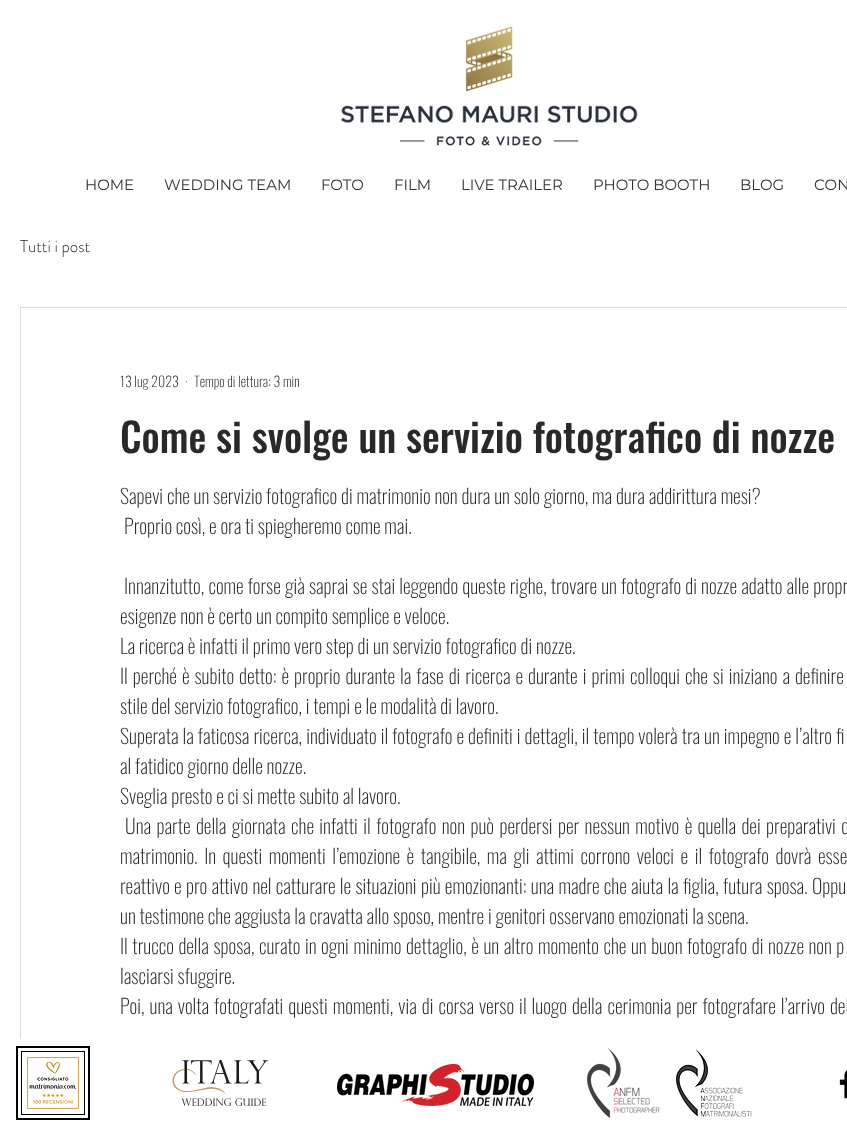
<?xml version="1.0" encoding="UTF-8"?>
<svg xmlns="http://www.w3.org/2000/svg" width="847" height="1128">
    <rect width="100%" height="100%" fill="#FFFFFF"/>
    <image x="341" y="26" width="297" height="120" href="img_01.png"/>
    <text x="85" y="190" font-family="Montserrat" font-size="15" fill="#333333">HOME</text>
    <text x="164" y="190" font-family="Montserrat" font-size="15" fill="#333333">WEDDING TEAM</text>
    <text x="321" y="190" font-family="Montserrat" font-size="15" fill="#333333">FOTO</text>
    <text x="394" y="190" font-family="Montserrat" font-size="15" fill="#333333">FILM</text>
    <text x="461" y="190" font-family="Montserrat" font-size="15" fill="#333333">LIVE TRAILER</text>
    <text x="593" y="190" font-family="Montserrat" font-size="15" fill="#333333">PHOTO BOOTH</text>
    <text x="740" y="190" font-family="Montserrat" font-size="15" fill="#333333">BLOG</text>
    <text x="814" y="190" font-family="Montserrat" font-size="15" fill="#333333">CON</text>
    <text x="20" y="252" font-family="'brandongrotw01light'" font-size="17" font-weight="300" fill="#292929">Tutti i post</text>
    <rect x="20.5" y="307.5" width="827" height="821" fill="none" stroke="#DBDBDB"/>
    <text x="120" y="387" font-family="Oswald" font-size="14" font-weight="200" fill="#292929">13 lug 2023</text>
    <text x="185" y="387" font-family="Oswald" font-size="14" font-weight="200" fill="#292929">·</text>
    <text x="194" y="387" font-family="Oswald" font-size="14" font-weight="200" fill="#292929">Tempo di lettura: 3 min</text>
    <text x="120" y="453" font-family="Oswald" font-size="40" font-weight="500" fill="#292929">Come si svolge un servizio fotografico di nozze</text>
    <text x="120" y="504" font-family="Oswald" font-size="20" font-weight="200" fill="#292929">Sapevi che un servizio fotografico di matrimonio non dura un solo giorno, ma dura addirittura mesi?</text>
    <text x="124" y="534" font-family="Oswald" font-size="20" font-weight="200" fill="#292929">Proprio così, e ora ti spiegheremo come mai.</text>
    <text x="124" y="594" word-spacing="0.3" font-family="Oswald" font-size="20" font-weight="200" fill="#292929">Innanzitutto, come forse già saprai se stai leggendo queste righe, trovare un fotografo di nozze adatto alle propr</text>
    <text font-family="Oswald" font-size="20" font-weight="200" fill="#292929">
        <tspan x="120" y="624">esigenze non è certo un compito semplice e veloce.</tspan>
        <tspan x="120" y="654">La ricerca è infatti il primo vero step di un servizio fotografico di nozze.</tspan>
        <tspan x="120" y="684" word-spacing="1.2">Il perché è subito detto: è proprio durante la fase di ricerca e durante i primi colloqui che si iniziano a definire</tspan>
        <tspan x="120" y="714">stile del servizio fotografico, i tempi e le modalità di lavoro.</tspan>
        <tspan x="120" y="744" word-spacing="0.25">Superata la faticosa ricerca, individuato il fotografo e definiti i dettagli, il tempo volerà tra un impegno e l’altro fi</tspan>
        <tspan x="120" y="774">al fatidico giorno delle nozze.</tspan>
        <tspan x="120" y="804">Sveglia presto e ci si mette subito al lavoro.</tspan>
    </text>
    <text x="125" y="834" word-spacing="1.6" font-family="Oswald" font-size="20" font-weight="200" fill="#292929">Una parte della giornata che infatti il fotografo non può perdersi per nessun motivo è quella dei preparativi d</text>
    <text font-family="Oswald" font-size="20" font-weight="200" fill="#292929">
        <tspan x="120" y="864" word-spacing="2.75">matrimonio. In questi momenti l’emozione è tangibile, ma gli attimi corrono veloci e il fotografo dovrà esse</tspan>
        <tspan x="120" y="894" word-spacing="0.5">reattivo e pro attivo nel catturare le situazioni più emozionanti: una madre che aiuta la figlia, futura sposa. Oppu</tspan>
        <tspan x="120" y="924">un testimone che aggiusta la cravatta allo sposo, mentre i genitori osservano emozionati la scena.</tspan>
        <tspan x="120" y="954" word-spacing="0.75">Il trucco della sposa, curato in ogni minimo dettaglio, è un altro momento che un buon fotografo di nozze non p</tspan>
        <tspan x="120" y="984">lasciarsi sfuggire.</tspan>
        <tspan x="120" y="1014" word-spacing="1.2">Poi, una volta fotografati questi momenti, via di corsa verso il luogo della cerimonia per fotografare l’arrivo del</tspan>
    </text>
    <rect x="20" y="1039" width="1" height="89" fill="#FFFFFF"/>
    <rect x="17" y="1047" width="72" height="72" fill="none" stroke="#000000" stroke-width="2"/>
    <image x="27" y="1057" width="52" height="52" href="img_02.png"/>
    <rect x="21.5" y="1051.5" width="63" height="63" fill="none" stroke="#000000"/>
    <image x="172" y="1060" width="97" height="46" href="img_03.png"/>
    <image x="337" y="1064" width="197" height="42" href="img_04.png"/>
    <image x="586" y="1048" width="74" height="70" href="img_05.png"/>
    <image x="676" y="1049" width="76" height="68" href="img_06.png"/>
    <image x="839" y="1070" width="8" height="29" href="img_07.png"/>
</svg>
